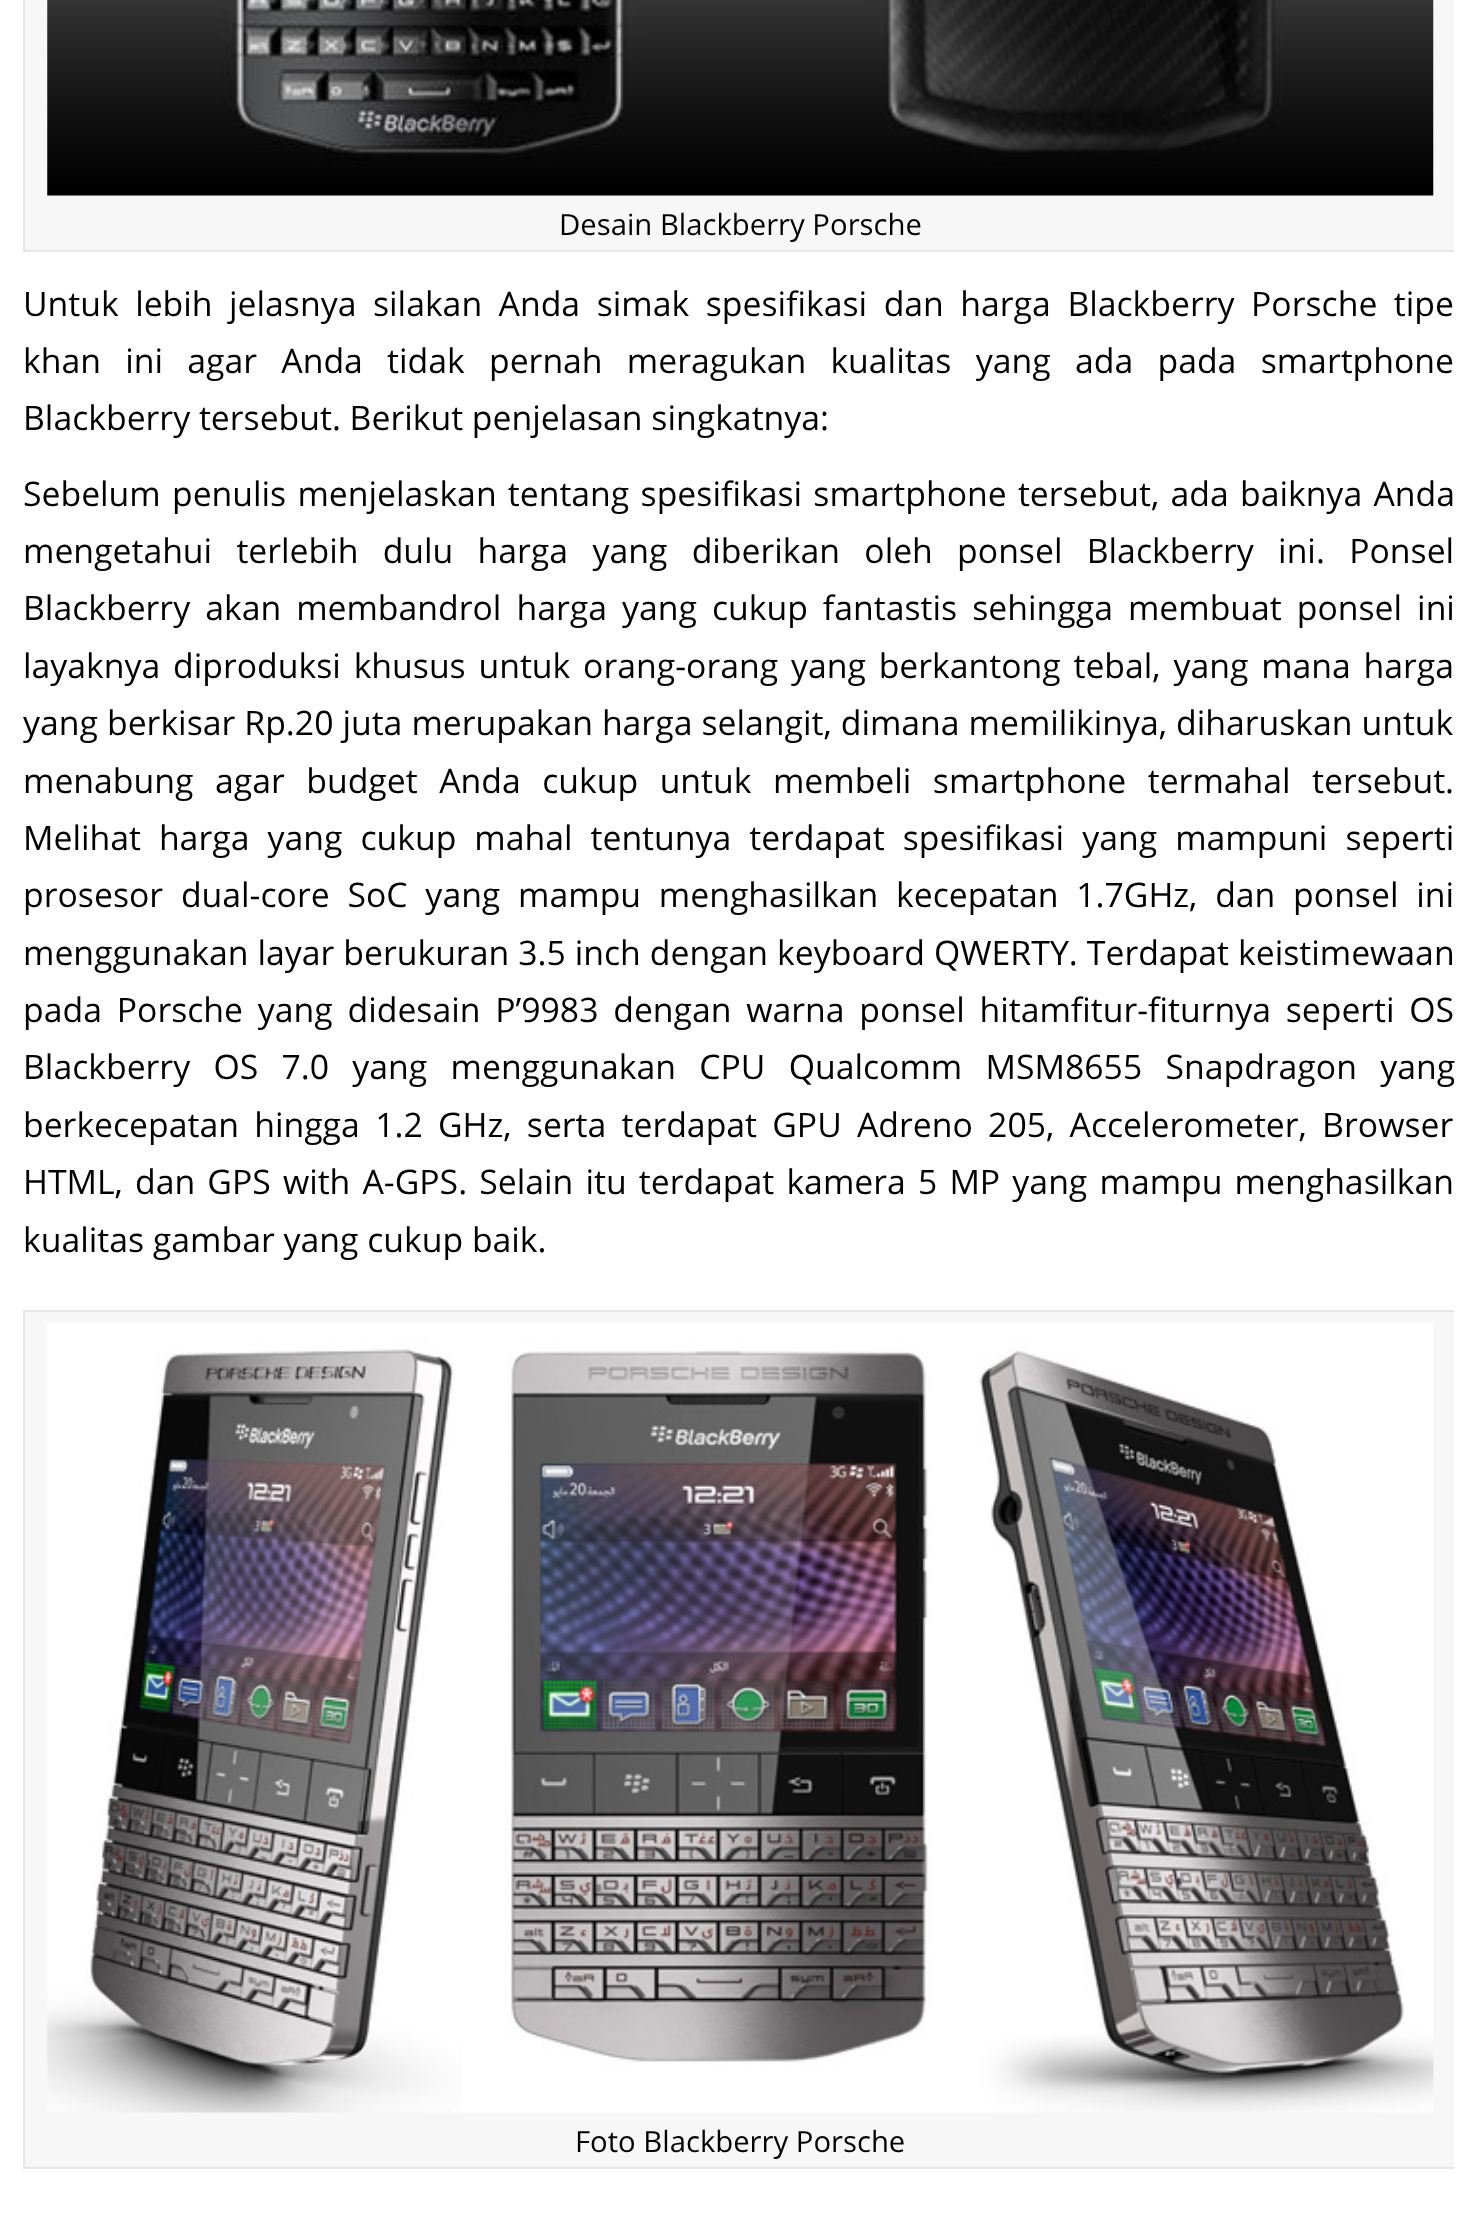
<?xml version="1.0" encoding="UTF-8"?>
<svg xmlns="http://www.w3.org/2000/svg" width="1475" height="2222">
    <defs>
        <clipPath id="clip1"><rect x="23" y="0" width="1431" height="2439"/></clipPath>
    </defs>
    <rect width="100%" height="100%" fill="#FFFFFF"/>
    <rect x="25" y="0" width="1429" height="250" fill="#F7F7F7"/>
    <g clip-path="url(#clip1)">
        <rect x="24" y="-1" width="1433" height="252" fill="none" stroke="#E6E6E6" stroke-width="2"/>
    </g>
    <image x="47" y="0" width="1387" height="196" href="img_01.png"/>
    <text x="559" y="235" font-family="Open Sans" font-size="29.25" fill="#000000">Desain Blackberry Porsche</text>
    <text font-family="Open Sans" font-size="33.75" fill="#000000">
        <tspan x="23" y="316" word-spacing="7.75">Untuk lebih jelasnya silakan Anda simak spesifikasi dan harga Blackberry Porsche tipe</tspan>
        <tspan x="23" y="373" word-spacing="15.5">khan ini agar Anda tidak pernah meragukan kualitas yang ada pada smartphone</tspan>
        <tspan x="23" y="430">Blackberry tersebut. Berikut penjelasan singkatnya:</tspan>
    </text>
    <text font-family="Open Sans" font-size="33.75" fill="#000000">
        <tspan x="23" y="506" word-spacing="2.5">Sebelum penulis menjelaskan tentang spesifikasi smartphone tersebut, ada baiknya Anda</tspan>
        <tspan x="23" y="563" word-spacing="15.5">mengetahui terlebih dulu harga yang diberikan oleh ponsel Blackberry ini. Ponsel</tspan>
        <tspan x="23" y="620" word-spacing="6.25">Blackberry akan membandrol harga yang cukup fantastis sehingga membuat ponsel ini</tspan>
        <tspan x="23" y="678" word-spacing="4">layaknya diproduksi khusus untuk orang-orang yang berkantong tebal, yang mana harga</tspan>
    </text>
    <g clip-path="url(#clip1)">
        <text x="23" y="735" word-spacing="0.25" font-family="Open Sans" font-size="33.75" fill="#000000">yang berkisar Rp.20 juta merupakan harga selangit, dimana memilikinya, diharuskan untuk</text>
    </g>
    <text font-family="Open Sans" font-size="33.75" fill="#000000">
        <tspan x="23" y="793" word-spacing="12.75">menabung agar budget Anda cukup untuk membeli smartphone termahal tersebut.</tspan>
        <tspan x="23" y="850" word-spacing="9.25">Melihat harga yang cukup mahal tentunya terdapat spesifikasi yang mampuni seperti</tspan>
        <tspan x="23" y="907" word-spacing="9">prosesor dual-core SoC yang mampu menghasilkan kecepatan 1.7GHz, dan ponsel ini</tspan>
        <tspan x="23" y="965" word-spacing="0.25">menggunakan layar berukuran 3.5 inch dengan keyboard QWERTY. Terdapat keistimewaan</tspan>
        <tspan x="23" y="1022" word-spacing="6">pada Porsche yang didesain P’9983 dengan warna ponsel hitamfitur-fiturnya seperti OS</tspan>
        <tspan x="23" y="1079" word-spacing="14.5">Blackberry OS 7.0 yang menggunakan CPU Qualcomm MSM8655 Snapdragon yang</tspan>
        <tspan x="23" y="1137" word-spacing="6.5">berkecepatan hingga 1.2 GHz, serta terdapat GPU Adreno 205, Accelerometer, Browser</tspan>
        <tspan x="23" y="1194" word-spacing="3.4">HTML, dan GPS with A-GPS. Selain itu terdapat kamera 5 MP yang mampu menghasilkan</tspan>
        <tspan x="23" y="1252">kualitas gambar yang cukup baik.</tspan>
    </text>
    <rect x="25" y="1312" width="1429" height="855" fill="#F7F7F7"/>
    <g clip-path="url(#clip1)">
        <rect x="24" y="1311" width="1433" height="857" fill="none" stroke="#E6E6E6" stroke-width="2"/>
    </g>
    <image x="47" y="1323" width="1387" height="790" href="img_02.png"/>
    <text x="575" y="2152" font-family="Open Sans" font-size="29.25" fill="#000000">Foto Blackberry Porsche</text>
</svg>
